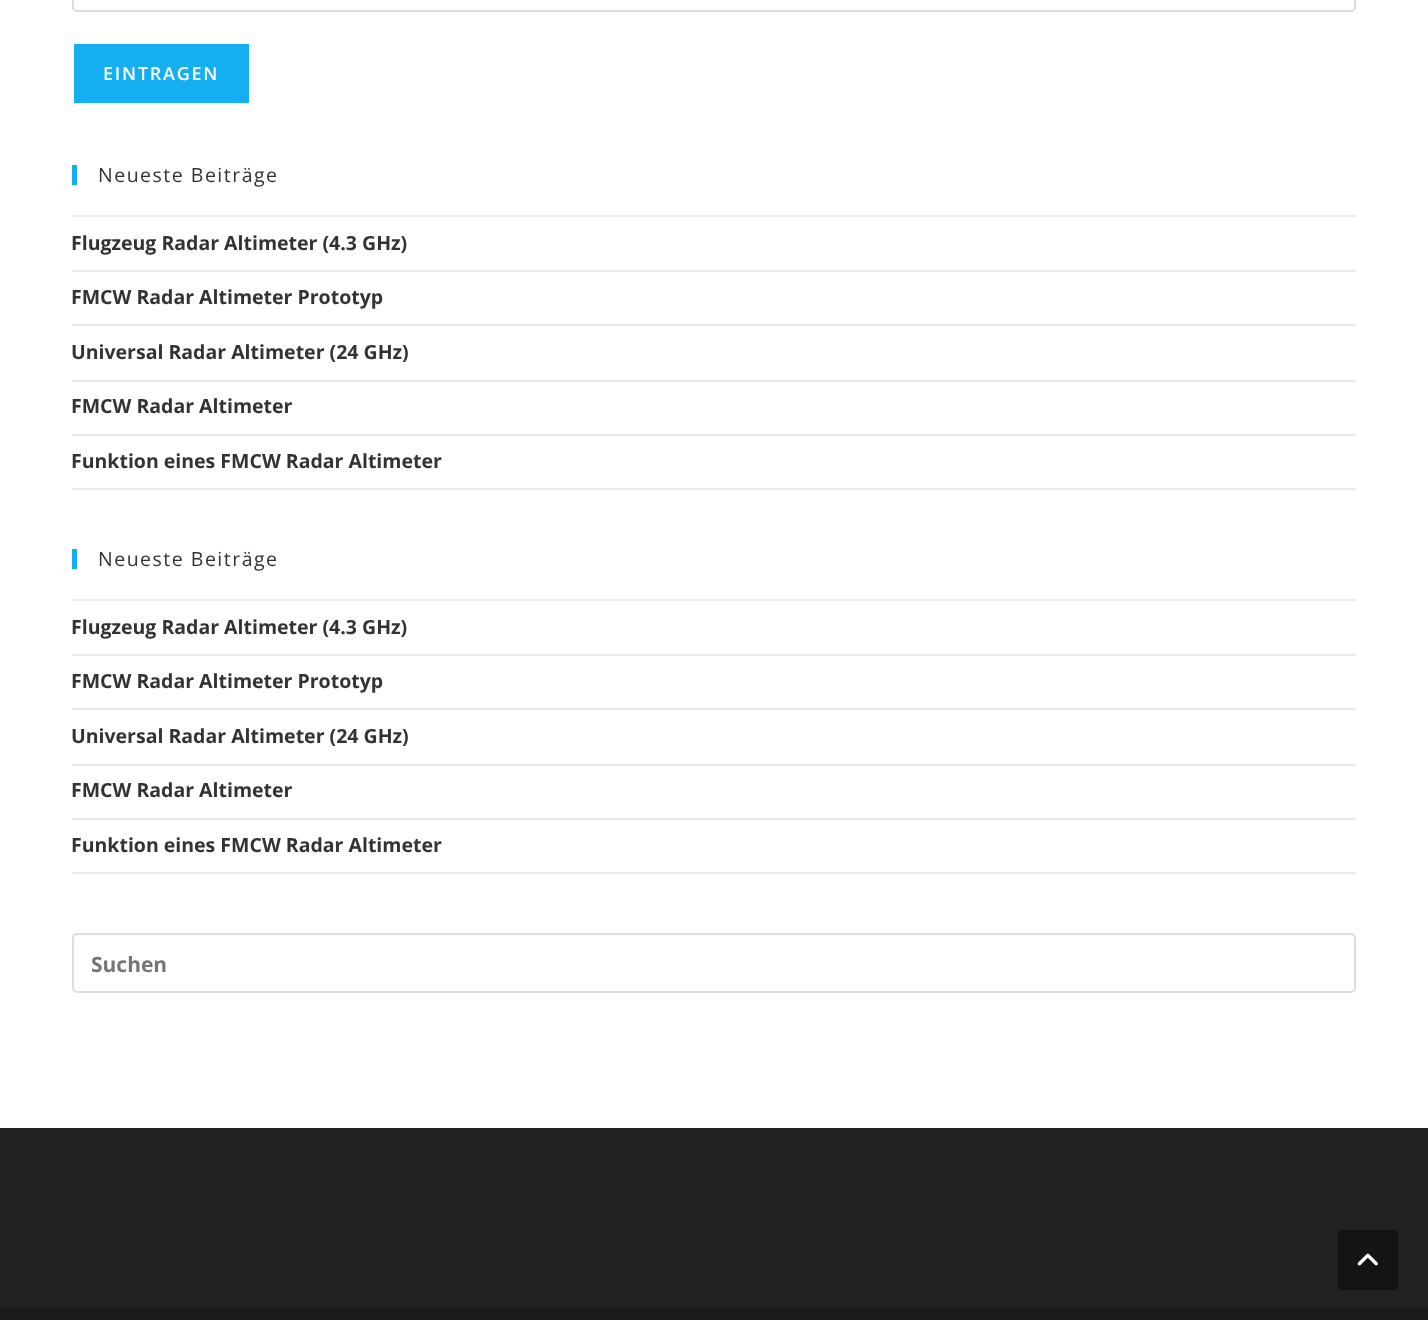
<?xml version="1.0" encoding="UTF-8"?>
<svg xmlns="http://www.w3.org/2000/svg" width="1428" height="1320">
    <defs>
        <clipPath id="clip1"><rect x="92" y="950" width="1245" height="28"/></clipPath>
    </defs>
    <rect width="100%" height="100%" fill="#FFFFFF"/>
    <rect x="73" y="-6" width="1282" height="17" rx="4" fill="none" stroke="#DDDDDD" stroke-width="2"/>
    <rect x="74" y="44" width="175" height="59" fill="#13AFF0"/>
    <text x="103" y="80" font-family="Open Sans" font-size="18" font-weight="600" letter-spacing="1.75" fill="#FFFFFF">EINTRAGEN</text>
    <rect x="72" y="165" width="5" height="20" fill="#13AFF0"/>
    <text x="98" y="182" font-family="Open Sans" font-size="19.5" letter-spacing="1.5" fill="#333333">Neueste Beiträge</text>
    <rect x="72" y="215" width="1284" height="2" fill="#E9E9E9"/>
    <rect x="72" y="270" width="1284" height="2" fill="#E9E9E9"/>
    <text x="71" y="250" font-family="Open Sans" font-size="19.5" font-weight="700" fill="#333333">Flugzeug Radar Altimeter (4.3 GHz)</text>
    <rect x="72" y="324" width="1284" height="2" fill="#E9E9E9"/>
    <text x="71" y="304" font-family="Open Sans" font-size="19.5" font-weight="700" fill="#333333">FMCW Radar Altimeter Prototyp</text>
    <rect x="72" y="380" width="1284" height="2" fill="#E9E9E9"/>
    <text x="71" y="359" font-family="Open Sans" font-size="19.5" font-weight="700" fill="#333333">Universal Radar Altimeter (24 GHz)</text>
    <rect x="72" y="434" width="1284" height="2" fill="#E9E9E9"/>
    <text x="71" y="413" font-family="Open Sans" font-size="19.5" font-weight="700" fill="#333333">FMCW Radar Altimeter</text>
    <rect x="72" y="488" width="1284" height="2" fill="#E9E9E9"/>
    <text x="71" y="468" font-family="Open Sans" font-size="19.5" font-weight="700" fill="#333333">Funktion eines FMCW Radar Altimeter</text>
    <rect x="72" y="549" width="5" height="20" fill="#13AFF0"/>
    <text x="98" y="566" font-family="Open Sans" font-size="19.5" letter-spacing="1.5" fill="#333333">Neueste Beiträge</text>
    <rect x="72" y="599" width="1284" height="2" fill="#E9E9E9"/>
    <rect x="72" y="654" width="1284" height="2" fill="#E9E9E9"/>
    <text x="71" y="634" font-family="Open Sans" font-size="19.5" font-weight="700" fill="#333333">Flugzeug Radar Altimeter (4.3 GHz)</text>
    <rect x="72" y="708" width="1284" height="2" fill="#E9E9E9"/>
    <text x="71" y="688" font-family="Open Sans" font-size="19.5" font-weight="700" fill="#333333">FMCW Radar Altimeter Prototyp</text>
    <rect x="72" y="764" width="1284" height="2" fill="#E9E9E9"/>
    <text x="71" y="743" font-family="Open Sans" font-size="19.5" font-weight="700" fill="#333333">Universal Radar Altimeter (24 GHz)</text>
    <rect x="72" y="818" width="1284" height="2" fill="#E9E9E9"/>
    <text x="71" y="797" font-family="Open Sans" font-size="19.5" font-weight="700" fill="#333333">FMCW Radar Altimeter</text>
    <rect x="72" y="872" width="1284" height="2" fill="#E9E9E9"/>
    <text x="71" y="852" font-family="Open Sans" font-size="19.5" font-weight="700" fill="#333333">Funktion eines FMCW Radar Altimeter</text>
    <rect x="73" y="934" width="1282" height="58" rx="4" fill="none" stroke="#DDDDDD" stroke-width="2"/>
    <g clip-path="url(#clip1)">
        <text x="91" y="972" font-family="Open Sans" font-size="21" font-weight="700" fill="#757575">Suchen</text>
    </g>
    <rect x="0" y="1128" width="1428" height="180" fill="#222222"/>
    <rect x="0" y="1308" width="1428" height="12" fill="#1B1B1B"/>
    <rect x="1338" y="1230" width="60" height="60" rx="3" fill="#141414"/>
    <image x="1357" y="1253" width="21" height="13" href="img_01.png"/>
</svg>
